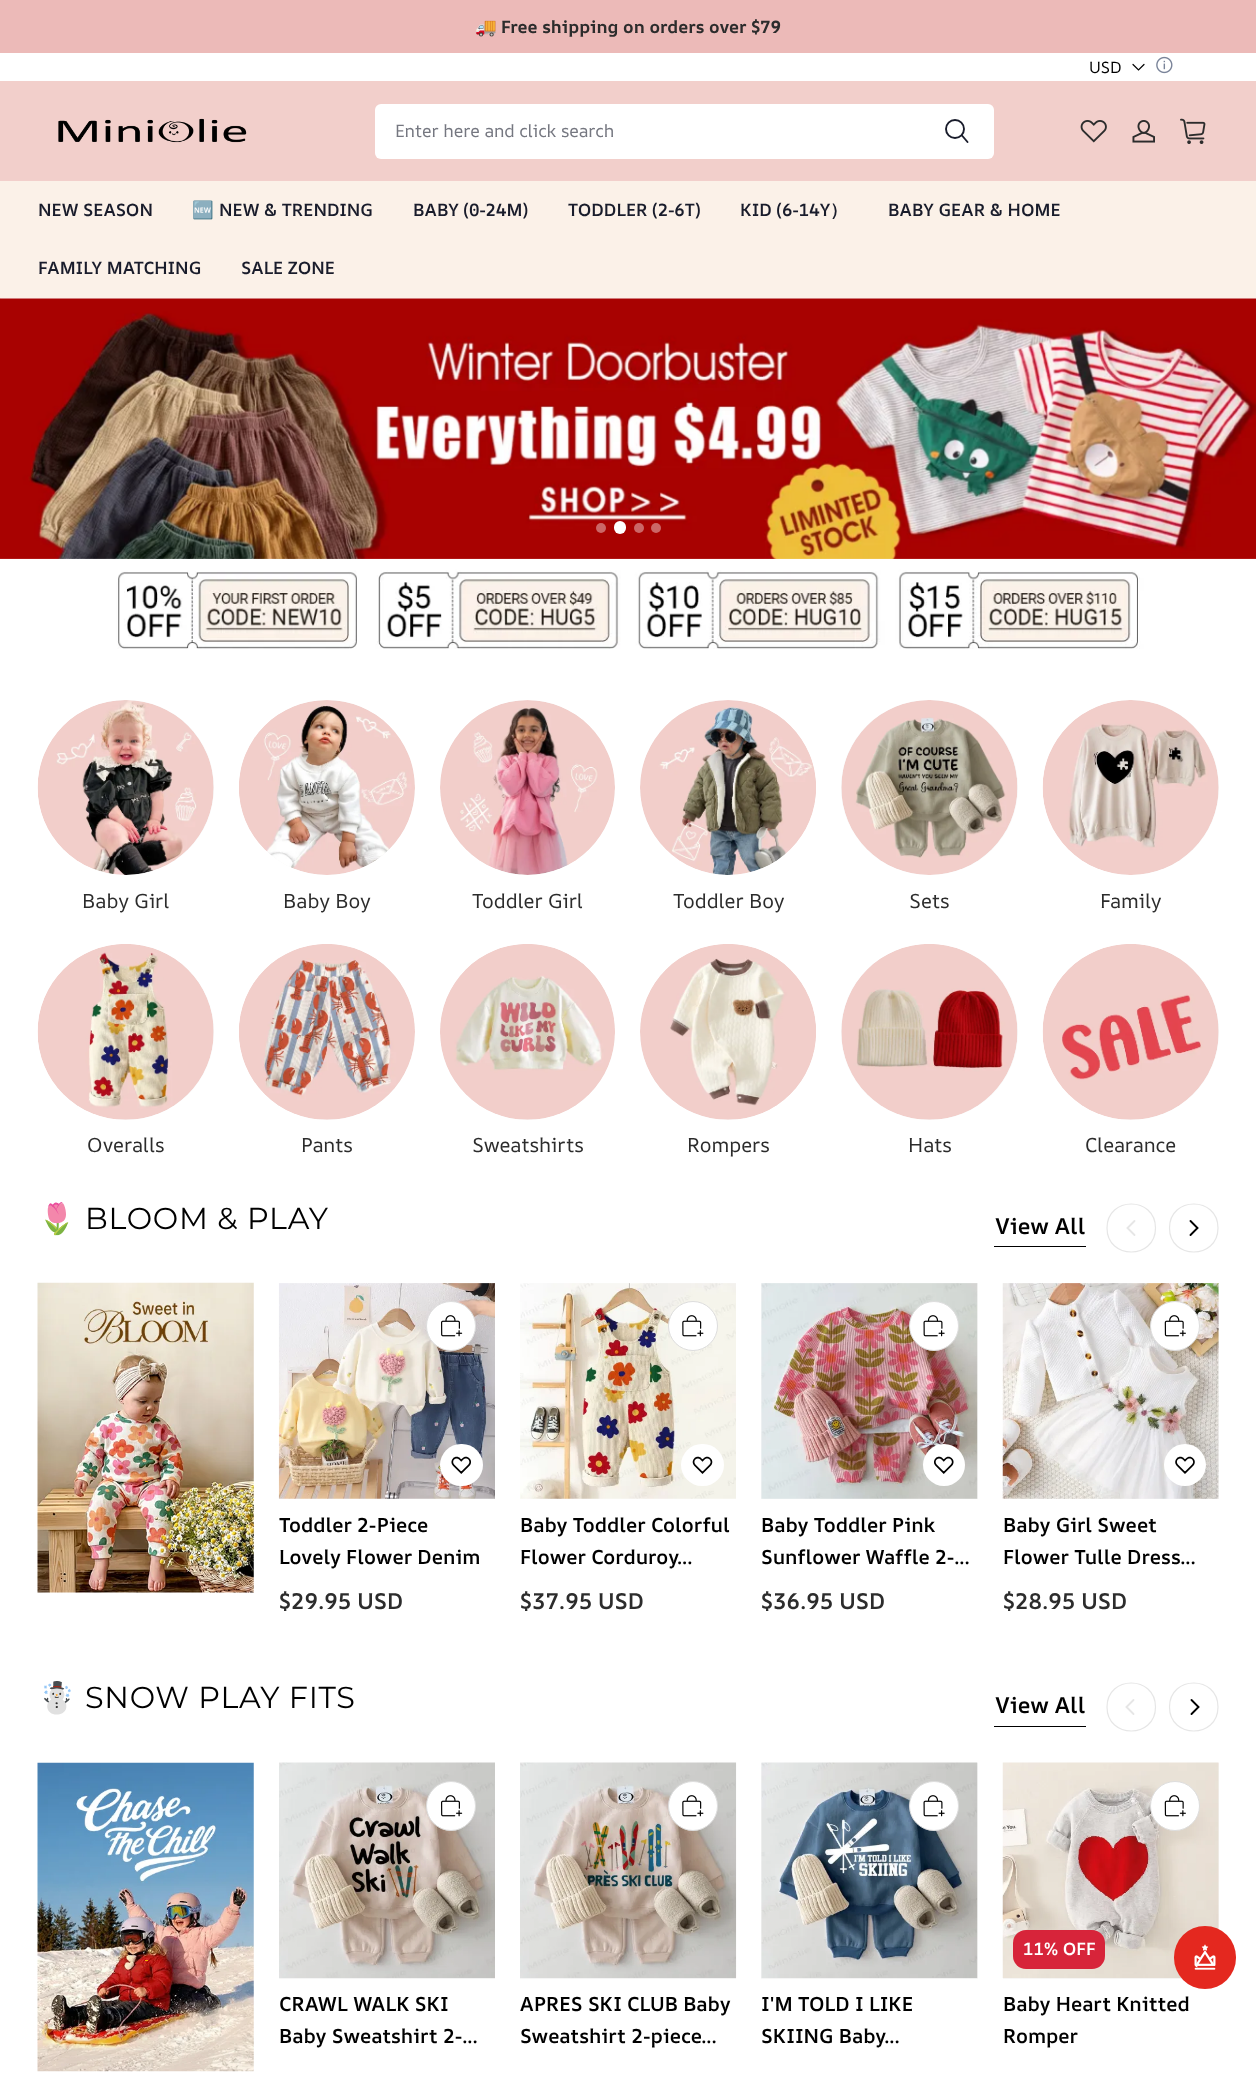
<?xml version="1.0" encoding="UTF-8"?>
<svg xmlns="http://www.w3.org/2000/svg" width="1256" height="2074">
    <rect width="100%" height="100%" fill="#FFFFFF"/>
    <rect x="0" y="0" width="1256" height="53" fill="#ECBAB8"/>
    <text x="475" y="33" font-family="Noto Color Emoji" font-size="17.5" font-weight="700" fill="#2C2C2C">🚚</text>
    <text x="501" y="33" font-family="AR One Sans" font-size="17.5" font-weight="700" fill="#2C2C2C">Free shipping on orders over $79</text>
    <text x="1089" y="73" font-family="AR One Sans" font-size="16" fill="#000000">USD</text>
    <path d="M 1133 64.5 L 1138.5 70 L 1144 64.5" fill="none" stroke="#000000" stroke-width="1.2" stroke-linecap="round"/>
    <image x="1156" y="56" width="17" height="18" href="img_01.png"/>
    <rect x="0" y="81" width="1256" height="100" fill="#F2CFCB"/>
    <image x="58" y="118" width="189" height="25" href="img_02.png"/>
    <rect x="375" y="104" width="619" height="55" rx="6" fill="#FFFFFF"/>
    <text x="395" y="137" font-family="AR One Sans" font-size="17.5" fill="#757780">Enter here and click search</text>
    <circle cx="955" cy="129" r="9" fill="none" stroke="#191C2B" stroke-width="1.9"/>
    <path d="M 962 135.5 L 967.5 142" fill="none" stroke="#191C2B" stroke-width="1.9" stroke-linecap="round"/>
    <image x="1080" y="120" width="27" height="23" href="img_03.png"/>
    <image x="1132" y="120" width="23" height="23" href="img_04.png"/>
    <image x="1180" y="118" width="26" height="26" href="img_05.png"/>
    <rect x="0" y="181" width="1256" height="117" fill="#FBF1E8"/>
    <text x="38" y="216" font-family="AR One Sans" font-size="17.5" font-weight="600" fill="#191C2B">NEW SEASON</text>
    <text x="192" y="216" font-family="Noto Color Emoji" font-size="17.5" font-weight="700" fill="#191C2B">🆕</text>
    <text x="219" y="216" font-family="AR One Sans" font-size="17.5" font-weight="600" fill="#191C2B">NEW &amp; TRENDING</text>
    <text x="413" y="216" font-family="AR One Sans" font-size="17.5" font-weight="600" fill="#191C2B">BABY (0-24M)</text>
    <text x="568" y="216" font-family="AR One Sans" font-size="17.5" font-weight="600" fill="#191C2B">TODDLER (2-6T)</text>
    <text x="740" y="216" font-family="AR One Sans" font-size="17.5" font-weight="600" fill="#191C2B">KID (6-14Y</text>
    <text x="830" y="216" font-family="WenQuanYi Zen Hei" font-size="17.5" font-weight="700" fill="#191C2B">）</text>
    <text x="888" y="216" font-family="AR One Sans" font-size="17.5" font-weight="600" fill="#191C2B">BABY GEAR &amp; HOME</text>
    <text x="38" y="274" font-family="AR One Sans" font-size="17.5" font-weight="600" fill="#191C2B">FAMILY MATCHING</text>
    <text x="241" y="274" font-family="AR One Sans" font-size="17.5" font-weight="600" fill="#191C2B">SALE ZONE</text>
    <image x="0" y="298" width="1" height="261" href="img_06.png"/>
    <image x="0" y="298" width="1256" height="261" href="img_07.png"/>
    <circle cx="601" cy="528" r="5" fill="#CB6767"/>
    <rect x="614" y="521" width="12" height="13" rx="6" fill="#FFFFFF"/>
    <circle cx="639" cy="528" r="5" fill="#CB6767"/>
    <circle cx="656" cy="528" r="5" fill="#CB6767"/>
    <image x="0" y="558" width="1256" height="91" href="img_08.png"/>
    <rect x="38" y="700" width="176" height="175" rx="87.5" fill="#F8F8F8"/>
    <image x="37" y="700" width="177" height="175" href="img_09.png"/>
    <text x="82" y="908" font-family="AR One Sans" font-size="20" fill="#2C2C2C">Baby Girl</text>
    <rect x="239" y="700" width="176" height="175" rx="87.5" fill="#F8F8F8"/>
    <image x="239" y="700" width="176" height="175" href="img_10.png"/>
    <text x="283" y="908" font-family="AR One Sans" font-size="20" fill="#2C2C2C">Baby Boy</text>
    <circle cx="527.5" cy="787.5" r="87.5" fill="#F8F8F8"/>
    <image x="440" y="700" width="175" height="175" href="img_11.png"/>
    <text x="472" y="908" font-family="AR One Sans" font-size="20" fill="#2C2C2C">Toddler Girl</text>
    <rect x="640" y="700" width="176" height="175" rx="87.5" fill="#F8F8F8"/>
    <image x="640" y="700" width="176" height="175" href="img_12.png"/>
    <text x="673" y="908" font-family="AR One Sans" font-size="20" fill="#2C2C2C">Toddler Boy</text>
    <rect x="841" y="700" width="177" height="175" rx="87.5" fill="#F8F8F8"/>
    <image x="841" y="700" width="177" height="175" href="img_13.png"/>
    <text x="909" y="908" font-family="AR One Sans" font-size="20" fill="#2C2C2C">Sets</text>
    <rect x="1043" y="700" width="176" height="175" rx="87.5" fill="#F8F8F8"/>
    <image x="1042" y="700" width="177" height="175" href="img_14.png"/>
    <text x="1100" y="908" font-family="AR One Sans" font-size="20" fill="#2C2C2C">Family</text>
    <circle cx="126" cy="1032" r="88" fill="#F8F8F8"/>
    <image x="37" y="944" width="177" height="176" href="img_15.png"/>
    <text x="87" y="1152" font-family="AR One Sans" font-size="20" fill="#2C2C2C">Overalls</text>
    <circle cx="327" cy="1032" r="88" fill="#F8F8F8"/>
    <image x="239" y="944" width="176" height="176" href="img_16.png"/>
    <text x="301" y="1152" font-family="AR One Sans" font-size="20" fill="#2C2C2C">Pants</text>
    <rect x="440" y="944" width="175" height="176" rx="87.5" fill="#F8F8F8"/>
    <image x="440" y="944" width="175" height="176" href="img_17.png"/>
    <text x="472" y="1152" font-family="AR One Sans" font-size="20" fill="#2C2C2C">Sweatshirts</text>
    <circle cx="728" cy="1032" r="88" fill="#F8F8F8"/>
    <image x="640" y="944" width="176" height="176" href="img_18.png"/>
    <text x="687" y="1152" font-family="AR One Sans" font-size="20" fill="#2C2C2C">Rompers</text>
    <rect x="841" y="944" width="177" height="176" rx="88" fill="#F8F8F8"/>
    <image x="841" y="944" width="177" height="176" href="img_19.png"/>
    <text x="908" y="1152" font-family="AR One Sans" font-size="20" fill="#2C2C2C">Hats</text>
    <circle cx="1131" cy="1032" r="88" fill="#F8F8F8"/>
    <image x="1042" y="944" width="177" height="176" href="img_20.png"/>
    <text x="1085" y="1152" font-family="AR One Sans" font-size="20" fill="#2C2C2C">Clearance</text>
    <text x="38" y="1229" font-family="Noto Color Emoji" font-size="30.25" letter-spacing="0.75" fill="#000000">🌷</text>
    <text x="85" y="1229" font-family="Montserrat" font-size="30.25" font-weight="100" letter-spacing="0.75" fill="#000000">BLOOM &amp; PLAY</text>
    <text x="995" y="1234" font-family="AR One Sans" font-size="22.5" font-weight="600" fill="#000000">View All</text>
    <rect x="994" y="1246" width="92" height="1" fill="#000000"/>
    <path d="M 1155.5 1228 C 1155.5 1260 1107 1260 1107 1228 C 1107 1196 1155.5 1196 1155.5 1228 Z" fill="none" stroke="#E6E6E6" stroke-width="1.2"/>
    <path d="M 1134.5 1221 L 1127.5 1228 L 1134.5 1235" fill="none" stroke="#E6E6E6" stroke-width="1.9" stroke-linecap="round"/>
    <path d="M 1169.5 1228 C 1169.5 1196 1218 1196 1218 1228 C 1218 1260 1169.5 1260 1169.5 1228 Z" fill="none" stroke="#E6E6E6" stroke-width="1.2"/>
    <path d="M 1190.5 1235 L 1197.5 1228 L 1190.5 1221" fill="none" stroke="#000000" stroke-width="1.9" stroke-linecap="round"/>
    <image x="37" y="1282" width="217" height="311" href="img_21.png"/>
    <rect x="145" y="1481" width="3" height="1" fill="#F7B500"/>
    <image x="278" y="1283" width="217" height="216" href="img_22.png"/>
    <circle cx="451" cy="1326" r="24.5" fill="#FFFFFF" stroke="#DDDDDD"/>
    <image x="441" y="1315" width="22" height="22" href="img_23.png"/>
    <rect x="440" y="1444" width="43" height="42" rx="21" fill="#FFFFFF"/>
    <image x="451" y="1456" width="20" height="18" href="img_24.png"/>
    <text font-family="AR One Sans" font-size="20" font-weight="600" fill="#000000">
        <tspan x="279" y="1532">Toddler 2-Piece</tspan>
        <tspan x="279" y="1564">Lovely Flower Denim</tspan>
    </text>
    <text x="279" y="1609" font-family="AR One Sans" font-size="22.5" font-weight="600" fill="#2C2C2C">$29.95 USD</text>
    <image x="520" y="1283" width="216" height="216" href="img_25.png"/>
    <circle cx="693" cy="1326" r="24.5" fill="#FFFFFF" stroke="#DDDDDD"/>
    <image x="682" y="1315" width="22" height="22" href="img_26.png"/>
    <rect x="681" y="1444" width="43" height="42" rx="21" fill="#FFFFFF"/>
    <image x="692" y="1456" width="21" height="18" href="img_27.png"/>
    <text font-family="AR One Sans" font-size="20" font-weight="600" fill="#000000">
        <tspan x="520" y="1532">Baby Toddler Colorful</tspan>
        <tspan x="520" y="1564">Flower Corduroy…</tspan>
    </text>
    <text x="520" y="1609" font-family="AR One Sans" font-size="22.5" font-weight="600" fill="#2C2C2C">$37.95 USD</text>
    <rect x="761" y="1283" width="217" height="216" fill="#F8F8F8"/>
    <image x="761" y="1283" width="217" height="216" href="img_28.png"/>
    <circle cx="934" cy="1326" r="24.5" fill="#FFFFFF" stroke="#DDDDDD"/>
    <image x="923" y="1315" width="22" height="22" href="img_29.png"/>
    <circle cx="944" cy="1465" r="21" fill="#FFFFFF"/>
    <image x="934" y="1456" width="20" height="18" href="img_30.png"/>
    <text font-family="AR One Sans" font-size="20" font-weight="600" fill="#000000">
        <tspan x="761" y="1532">Baby Toddler Pink</tspan>
        <tspan x="761" y="1564">Sunflower Waffle 2-…</tspan>
    </text>
    <text x="761" y="1609" font-family="AR One Sans" font-size="22.5" font-weight="600" fill="#2C2C2C">$36.95 USD</text>
    <rect x="1003" y="1283" width="216" height="216" fill="#F8F8F8"/>
    <image x="1002" y="1283" width="217" height="216" href="img_31.png"/>
    <circle cx="1175" cy="1326" r="24.5" fill="#FFFFFF" stroke="#DDDDDD"/>
    <image x="1164" y="1315" width="22" height="22" href="img_32.png"/>
    <circle cx="1185" cy="1465" r="21" fill="#FFFFFF"/>
    <image x="1175" y="1456" width="20" height="18" href="img_33.png"/>
    <text font-family="AR One Sans" font-size="20" font-weight="600" fill="#000000">
        <tspan x="1003" y="1532">Baby Girl Sweet</tspan>
        <tspan x="1003" y="1564">Flower Tulle Dress…</tspan>
    </text>
    <text x="1003" y="1609" font-family="AR One Sans" font-size="22.5" font-weight="600" fill="#2C2C2C">$28.95 USD</text>
    <text x="38" y="1708" font-family="Noto Color Emoji" font-size="30.25" letter-spacing="0.75" fill="#000000">☃️</text>
    <text x="85" y="1708" font-family="Montserrat" font-size="30.25" font-weight="100" letter-spacing="0.75" fill="#000000">SNOW PLAY FITS</text>
    <text x="995" y="1713" font-family="AR One Sans" font-size="22.5" font-weight="600" fill="#000000">View All</text>
    <rect x="994" y="1726" width="92" height="1" fill="#000000"/>
    <path d="M 1155.5 1707 C 1155.5 1739 1107 1739 1107 1707 C 1107 1675 1155.5 1675 1155.5 1707 Z" fill="none" stroke="#E6E6E6" stroke-width="1.2"/>
    <path d="M 1133.5 1700 L 1126.5 1707 L 1133.5 1714" fill="none" stroke="#E6E6E6" stroke-width="1.9" stroke-linecap="round"/>
    <path d="M 1169.5 1707 C 1169.5 1675 1218 1675 1218 1707 C 1218 1739 1169.5 1739 1169.5 1707 Z" fill="none" stroke="#E6E6E6" stroke-width="1.2"/>
    <path d="M 1191.5 1714 L 1198.5 1707 L 1191.5 1700" fill="none" stroke="#000000" stroke-width="1.9" stroke-linecap="round"/>
    <image x="37" y="1762" width="217" height="310" href="img_34.png"/>
    <rect x="145" y="1960" width="3" height="1" fill="#F7B500"/>
    <rect x="279" y="1978" width="216" height="1" fill="#F8F8F8"/>
    <image x="279" y="1762" width="216" height="217" href="img_35.png"/>
    <circle cx="451" cy="1806" r="24.5" fill="#FFFFFF" stroke="#DDDDDD"/>
    <image x="441" y="1795" width="22" height="22" href="img_23.png"/>
    <text font-family="AR One Sans" font-size="20" font-weight="600" fill="#000000">
        <tspan x="279" y="2011">CRAWL WALK SKI</tspan>
        <tspan x="279" y="2043">Baby Sweatshirt 2-…</tspan>
    </text>
    <rect x="520" y="1978" width="216" height="1" fill="#F8F8F8"/>
    <image x="520" y="1762" width="217" height="217" href="img_36.png"/>
    <circle cx="693" cy="1806" r="24.5" fill="#FFFFFF" stroke="#DDDDDD"/>
    <image x="682" y="1795" width="22" height="22" href="img_26.png"/>
    <text font-family="AR One Sans" font-size="20" font-weight="600" fill="#000000">
        <tspan x="520" y="2011">APRES SKI CLUB Baby</tspan>
        <tspan x="520" y="2043">Sweatshirt 2-piece…</tspan>
    </text>
    <rect x="761" y="1763" width="217" height="216" fill="#F8F8F8"/>
    <image x="761" y="1762" width="217" height="217" href="img_37.png"/>
    <circle cx="934" cy="1806" r="24.5" fill="#FFFFFF" stroke="#DDDDDD"/>
    <image x="923" y="1795" width="22" height="22" href="img_29.png"/>
    <text font-family="AR One Sans" font-size="20" font-weight="600" fill="#000000">
        <tspan x="761" y="2011">I'M TOLD I LIKE</tspan>
        <tspan x="761" y="2043">SKIING Baby…</tspan>
    </text>
    <rect x="1003" y="1763" width="216" height="216" fill="#F8F8F8"/>
    <image x="1002" y="1762" width="217" height="217" href="img_38.png"/>
    <circle cx="1175" cy="1806" r="24.5" fill="#FFFFFF" stroke="#DDDDDD"/>
    <image x="1164" y="1795" width="22" height="22" href="img_32.png"/>
    <rect x="1013" y="1930" width="92" height="39" rx="13" fill="#D7243A"/>
    <text x="1023" y="1955" font-family="AR One Sans" font-size="17.5" font-weight="600" fill="#FFFFFF">11% OFF</text>
    <text font-family="AR One Sans" font-size="20" font-weight="600" fill="#000000">
        <tspan x="1003" y="2011">Baby Heart Knitted</tspan>
        <tspan x="1003" y="2043">Romper</tspan>
    </text>
    <rect x="1174" y="1926" width="62" height="63" rx="31" fill="#E4281F"/>
    <image x="1194" y="1944" width="22" height="26" href="img_39.png"/>
</svg>
